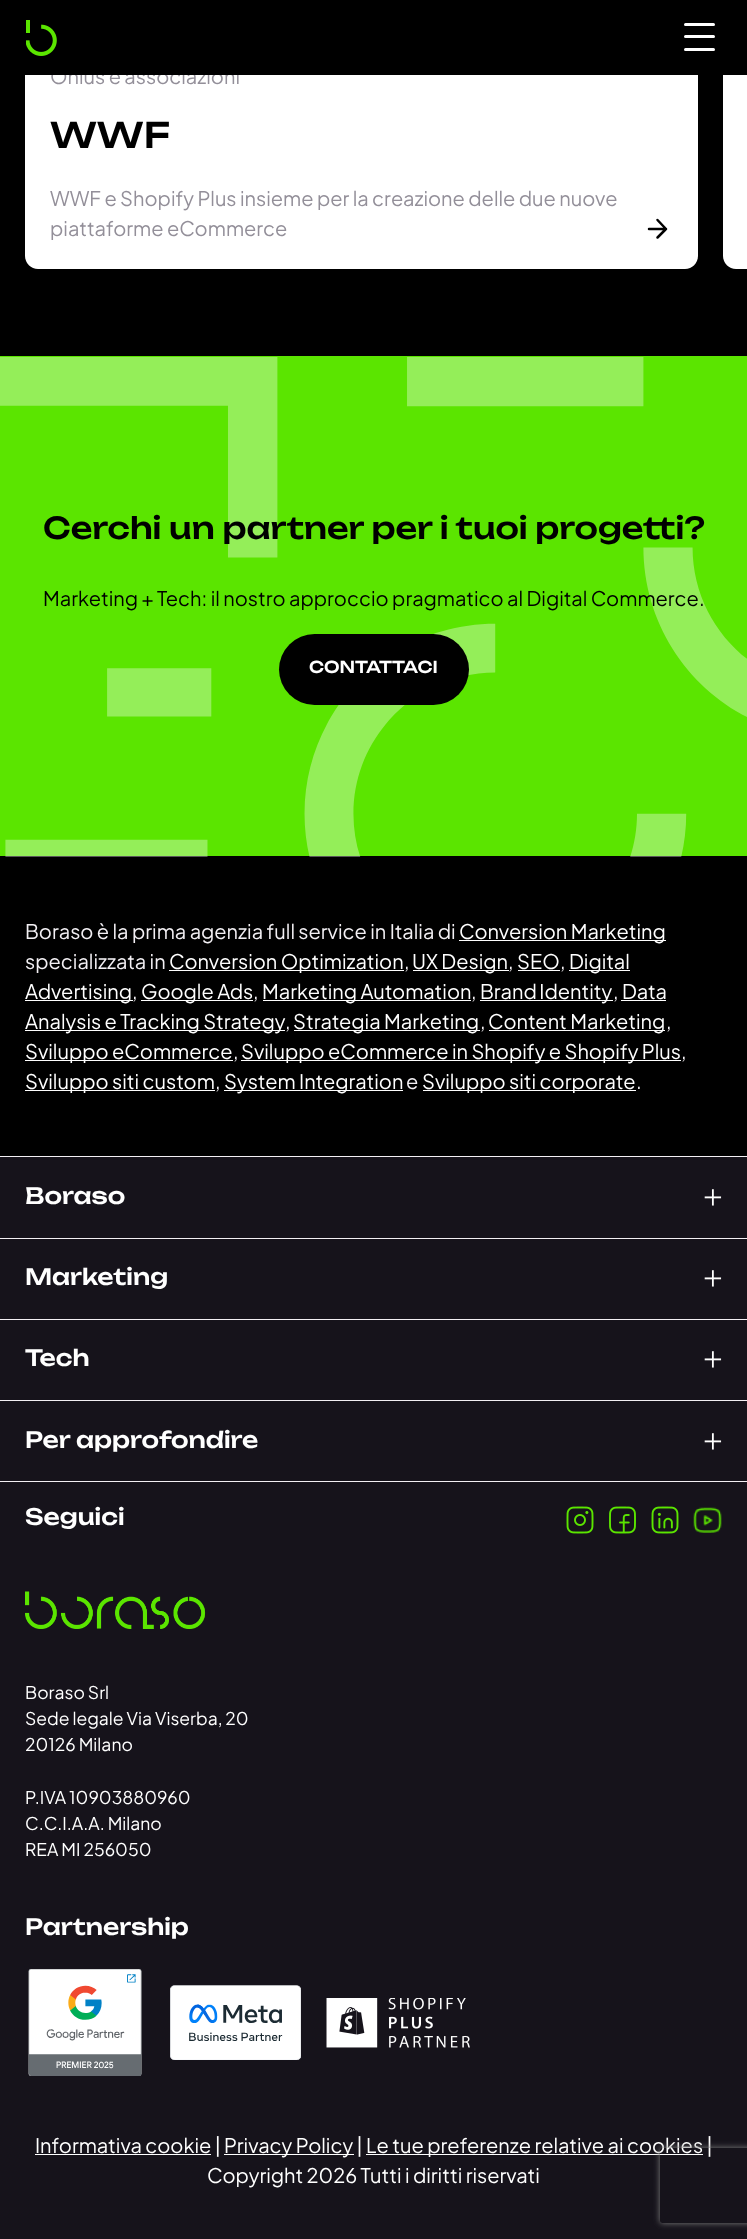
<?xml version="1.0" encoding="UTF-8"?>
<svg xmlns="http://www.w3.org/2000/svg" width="747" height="2239">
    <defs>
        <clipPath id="clip1"><path d="M 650 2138 H 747 V 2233 H 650 Z M 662.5 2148 H 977.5 C 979 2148 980 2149 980 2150.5 V 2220.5 C 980 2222 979 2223 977.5 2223 H 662.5 C 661 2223 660 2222 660 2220.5 V 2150.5 C 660 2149 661 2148 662.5 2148 Z" clip-rule="evenodd"/></clipPath>
        <filter id="blur1" x="-50%" y="-200%" width="200%" height="500%"><feGaussianBlur stdDeviation="3"/></filter>
    </defs>
    <rect width="100%" height="100%" fill="#000000"/>
    <path d="M 25 38 H 698 V 256 C 698 263 692 269 685 269 H 38 C 31 269 25 263 25 256 Z" fill="#FFFFFF"/>
    <text x="50" y="84" font-family="Plus Jakarta Sans" font-size="20" fill="#938F99">Onlus e associazioni</text>
    <path d="M 723 38 H 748 V 269 H 736 C 729 269 723 263 723 256 Z" fill="#FFFFFF"/>
    <rect x="25" y="38" width="722" height="37" fill="#000000"/>
    <image x="26" y="20" width="31" height="36" href="img_01.png"/>
    <rect x="684" y="23" width="31" height="3" rx="1.5" fill="#FFFFFF"/>
    <rect x="684" y="35" width="31" height="3" rx="1.5" fill="#FFFFFF"/>
    <rect x="684" y="48" width="31" height="3" rx="1.5" fill="#FFFFFF"/>
    <text x="50" y="148" font-family="Unbounded" font-size="35" font-weight="500" fill="#000000">WWF</text>
    <text font-family="Plus Jakarta Sans" font-size="20" fill="#938F99">
        <tspan x="50" y="206">WWF e Shopify Plus insieme per la creazione delle due nuove</tspan>
        <tspan x="50" y="236">piattaforme eCommerce</tspan>
    </text>
    <path d="M 649 229 H 666 M 657.5 220 L 666 229 L 657.5 237.5" fill="none" stroke="#000000" stroke-width="2.5" stroke-linecap="round" stroke-linejoin="round"/>
    <rect x="0" y="356" width="747" height="500" fill="#5BE500"/>
    <image x="0" y="357" width="747" height="500" href="img_02.png"/>
    <text x="43" y="539" font-family="Unbounded" font-size="30" font-weight="500" fill="#000000">Cerchi un partner per i tuoi progetti?</text>
    <text x="43" y="606" font-family="Plus Jakarta Sans" font-size="20" fill="#000000">Marketing + Tech: il nostro approccio pragmatico al Digital Commerce.</text>
    <rect x="279" y="634" width="190" height="71" rx="35.5" fill="#000000"/>
    <text x="309" y="673" font-family="Unbounded" font-size="16.25" font-weight="500" fill="#FFFFFF">CONTATTACI</text>
    <text x="25" y="939" font-family="Plus Jakarta Sans" font-size="20" fill="#F3F0F4">Boraso è la prima agenzia full service in Italia di</text>
    <rect x="459" y="940" width="207" height="1" fill="#FFFFFF"/>
    <text x="459" y="939" font-family="Plus Jakarta Sans" font-size="20" fill="#FFFFFF">Conversion Marketing</text>
    <text x="25" y="969" font-family="Plus Jakarta Sans" font-size="20" fill="#F3F0F4">specializzata in</text>
    <rect x="169" y="970" width="235" height="1" fill="#FFFFFF"/>
    <text x="169" y="969" font-family="Plus Jakarta Sans" font-size="20" fill="#FFFFFF">Conversion Optimization</text>
    <text x="404" y="969" font-family="Plus Jakarta Sans" font-size="20" fill="#F3F0F4">,</text>
    <rect x="413" y="970" width="96" height="1" fill="#FFFFFF"/>
    <text x="412" y="969" font-family="Plus Jakarta Sans" font-size="20" fill="#FFFFFF">UX Design</text>
    <text x="508" y="969" font-family="Plus Jakarta Sans" font-size="20" fill="#F3F0F4">,</text>
    <text x="517" y="969" font-family="Plus Jakarta Sans" font-size="20" fill="#FFFFFF">SEO</text>
    <rect x="518" y="970" width="42" height="1" fill="#FFFFFF"/>
    <text x="560" y="969" font-family="Plus Jakarta Sans" font-size="20" fill="#F3F0F4">,</text>
    <rect x="569" y="970" width="61" height="1" fill="#FFFFFF"/>
    <text x="569" y="969" font-family="Plus Jakarta Sans" font-size="20" fill="#FFFFFF">Digital</text>
    <rect x="25" y="1000" width="108" height="1" fill="#FFFFFF"/>
    <text x="25" y="999" font-family="Plus Jakarta Sans" font-size="20" fill="#FFFFFF">Advertising</text>
    <text x="132" y="999" font-family="Plus Jakarta Sans" font-size="20" fill="#F3F0F4">,</text>
    <rect x="141" y="1000" width="112" height="1" fill="#FFFFFF"/>
    <text x="141" y="999" font-family="Plus Jakarta Sans" font-size="20" fill="#FFFFFF">Google Ads</text>
    <text x="253" y="999" font-family="Plus Jakarta Sans" font-size="20" fill="#F3F0F4">,</text>
    <rect x="263" y="1000" width="208" height="1" fill="#FFFFFF"/>
    <text x="262" y="999" font-family="Plus Jakarta Sans" font-size="20" fill="#FFFFFF">Marketing Automation</text>
    <text x="471" y="999" font-family="Plus Jakarta Sans" font-size="20" fill="#F3F0F4">,</text>
    <rect x="480" y="1000" width="133" height="1" fill="#FFFFFF"/>
    <text x="480" y="999" word-spacing="-1" font-family="Plus Jakarta Sans" font-size="20" fill="#FFFFFF">Brand Identity</text>
    <text x="613" y="999" font-family="Plus Jakarta Sans" font-size="20" fill="#F3F0F4">,</text>
    <text x="622" y="999" font-family="Plus Jakarta Sans" font-size="20" fill="#FFFFFF">Data</text>
    <rect x="621" y="1000" width="45" height="1" fill="#FFFFFF"/>
    <rect x="25" y="1030" width="260" height="1" fill="#FFFFFF"/>
    <text x="25" y="1029" font-family="Plus Jakarta Sans" font-size="20" fill="#FFFFFF">Analysis e Tracking Strategy</text>
    <text x="285" y="1029" font-family="Plus Jakarta Sans" font-size="20" fill="#F3F0F4">,</text>
    <rect x="294" y="1030" width="186" height="1" fill="#FFFFFF"/>
    <text x="293" y="1029" font-family="Plus Jakarta Sans" font-size="20" fill="#FFFFFF">Strategia Marketing</text>
    <text x="480" y="1029" font-family="Plus Jakarta Sans" font-size="20" fill="#F3F0F4">,</text>
    <rect x="489" y="1030" width="176" height="1" fill="#FFFFFF"/>
    <text x="488" y="1029" font-family="Plus Jakarta Sans" font-size="20" fill="#FFFFFF">Content Marketing</text>
    <text x="666" y="1029" font-family="Plus Jakarta Sans" font-size="20" fill="#F3F0F4">,</text>
    <rect x="25" y="1060" width="208" height="1" fill="#FFFFFF"/>
    <text x="25" y="1059" font-family="Plus Jakarta Sans" font-size="20" fill="#FFFFFF">Sviluppo eCommerce</text>
    <text x="233" y="1059" font-family="Plus Jakarta Sans" font-size="20" fill="#F3F0F4">,</text>
    <rect x="241" y="1060" width="440" height="1" fill="#FFFFFF"/>
    <text x="241" y="1059" font-family="Plus Jakarta Sans" font-size="20" fill="#FFFFFF">Sviluppo eCommerce in Shopify e Shopify Plus</text>
    <text x="681" y="1059" font-family="Plus Jakarta Sans" font-size="20" fill="#F3F0F4">,</text>
    <rect x="25" y="1090" width="190" height="1" fill="#FFFFFF"/>
    <text x="25" y="1089" font-family="Plus Jakarta Sans" font-size="20" fill="#FFFFFF">Sviluppo siti custom</text>
    <text x="215" y="1089" font-family="Plus Jakarta Sans" font-size="20" fill="#F3F0F4">,</text>
    <rect x="224" y="1090" width="179" height="1" fill="#FFFFFF"/>
    <text x="224" y="1089" font-family="Plus Jakarta Sans" font-size="20" fill="#FFFFFF">System Integration</text>
    <text x="406" y="1089" font-family="Plus Jakarta Sans" font-size="20" fill="#F3F0F4">e</text>
    <rect x="423" y="1090" width="213" height="1" fill="#FFFFFF"/>
    <text x="422" y="1089" font-family="Plus Jakarta Sans" font-size="20" fill="#FFFFFF">Sviluppo siti corporate</text>
    <text x="636" y="1089" font-family="Plus Jakarta Sans" font-size="20" fill="#F3F0F4">.</text>
    <rect x="0" y="1157" width="747" height="1082" fill="#16131B"/>
    <rect x="0" y="1156" width="747" height="1" fill="#F3F0F4"/>
    <text x="25" y="1204" font-family="Unbounded" font-size="22.5" font-weight="500" fill="#FFFFFF">Boraso</text>
    <text x="703" y="1209" font-family="Liberation Serif" font-size="35" fill="#FFFFFF">+</text>
    <rect x="0" y="1238" width="747" height="1" fill="#F3F0F4"/>
    <text x="25" y="1285" font-family="Unbounded" font-size="22.5" font-weight="500" fill="#FFFFFF">Marketing</text>
    <text x="703" y="1290" font-family="Liberation Serif" font-size="35" fill="#FFFFFF">+</text>
    <rect x="0" y="1319" width="747" height="1" fill="#F3F0F4"/>
    <text x="25" y="1366" font-family="Unbounded" font-size="22.5" font-weight="500" fill="#FFFFFF">Tech</text>
    <text x="703" y="1371" font-family="Liberation Serif" font-size="35" fill="#FFFFFF">+</text>
    <rect x="0" y="1400" width="747" height="1" fill="#F3F0F4"/>
    <rect x="0" y="1481" width="747" height="1" fill="#F3F0F4"/>
    <text x="25" y="1448" font-family="Unbounded" font-size="22.5" font-weight="500" fill="#FFFFFF">Per approfondire</text>
    <text x="703" y="1453" font-family="Liberation Serif" font-size="35" fill="#FFFFFF">+</text>
    <text x="25" y="1525" font-family="Unbounded" font-size="22.5" font-weight="500" fill="#FFFFFF">Seguici</text>
    <image x="566" y="1506" width="28" height="28" href="img_03.png"/>
    <image x="609" y="1506" width="27" height="28" href="img_04.png"/>
    <image x="651" y="1506" width="28" height="28" href="img_05.png"/>
    <image x="693" y="1507" width="29" height="26" href="img_06.png"/>
    <image x="25" y="1591" width="181" height="38" href="img_07.png"/>
    <text font-family="Plus Jakarta Sans" font-size="17.5" fill="#FFFFFF">
        <tspan x="25" y="1699">Boraso Srl</tspan>
        <tspan x="25" y="1725">Sede legale Via Viserba, 20</tspan>
        <tspan x="25" y="1751">20126 Milano</tspan>
    </text>
    <text font-family="Plus Jakarta Sans" font-size="17.5" fill="#FFFFFF">
        <tspan x="25" y="1804">P.IVA 10903880960</tspan>
        <tspan x="25" y="1830">C.C.I.A.A. Milano</tspan>
        <tspan x="25" y="1856">REA MI 256050</tspan>
    </text>
    <text x="25" y="1935" font-family="Unbounded" font-size="22.5" font-weight="500" fill="#FFFFFF">Partnership</text>
    <image x="28" y="1969" width="114" height="107" href="img_08.png"/>
    <image x="170" y="1985" width="131" height="75" href="img_09.png"/>
    <image x="326" y="1998" width="144" height="50" href="img_10.png"/>
    <rect x="35" y="2154" width="176" height="1" fill="#FFFFFF"/>
    <text x="35" y="2153" font-family="Plus Jakarta Sans" font-size="20" fill="#FFFFFF">Informativa cookie |</text>
    <rect x="224" y="2154" width="130" height="1" fill="#FFFFFF"/>
    <text x="224" y="2153" font-family="Plus Jakarta Sans" font-size="20" fill="#FFFFFF">Privacy Policy |</text>
    <rect x="366" y="2154" width="337" height="1" fill="#FFFFFF"/>
    <text x="366" y="2153" font-family="Plus Jakarta Sans" font-size="20" fill="#FFFFFF">Le tue preferenze relative ai cookies |</text>
    <text x="207" y="2183" font-family="Plus Jakarta Sans" font-size="20" fill="#FFFFFF">Copyright 2026 Tutti i diritti riservati</text>
    <g clip-path="url(#clip1)">
        <rect x="660" y="2148" width="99" height="75" rx="2.5" fill="#808080" filter="url(#blur1)"/>
    </g>
</svg>
